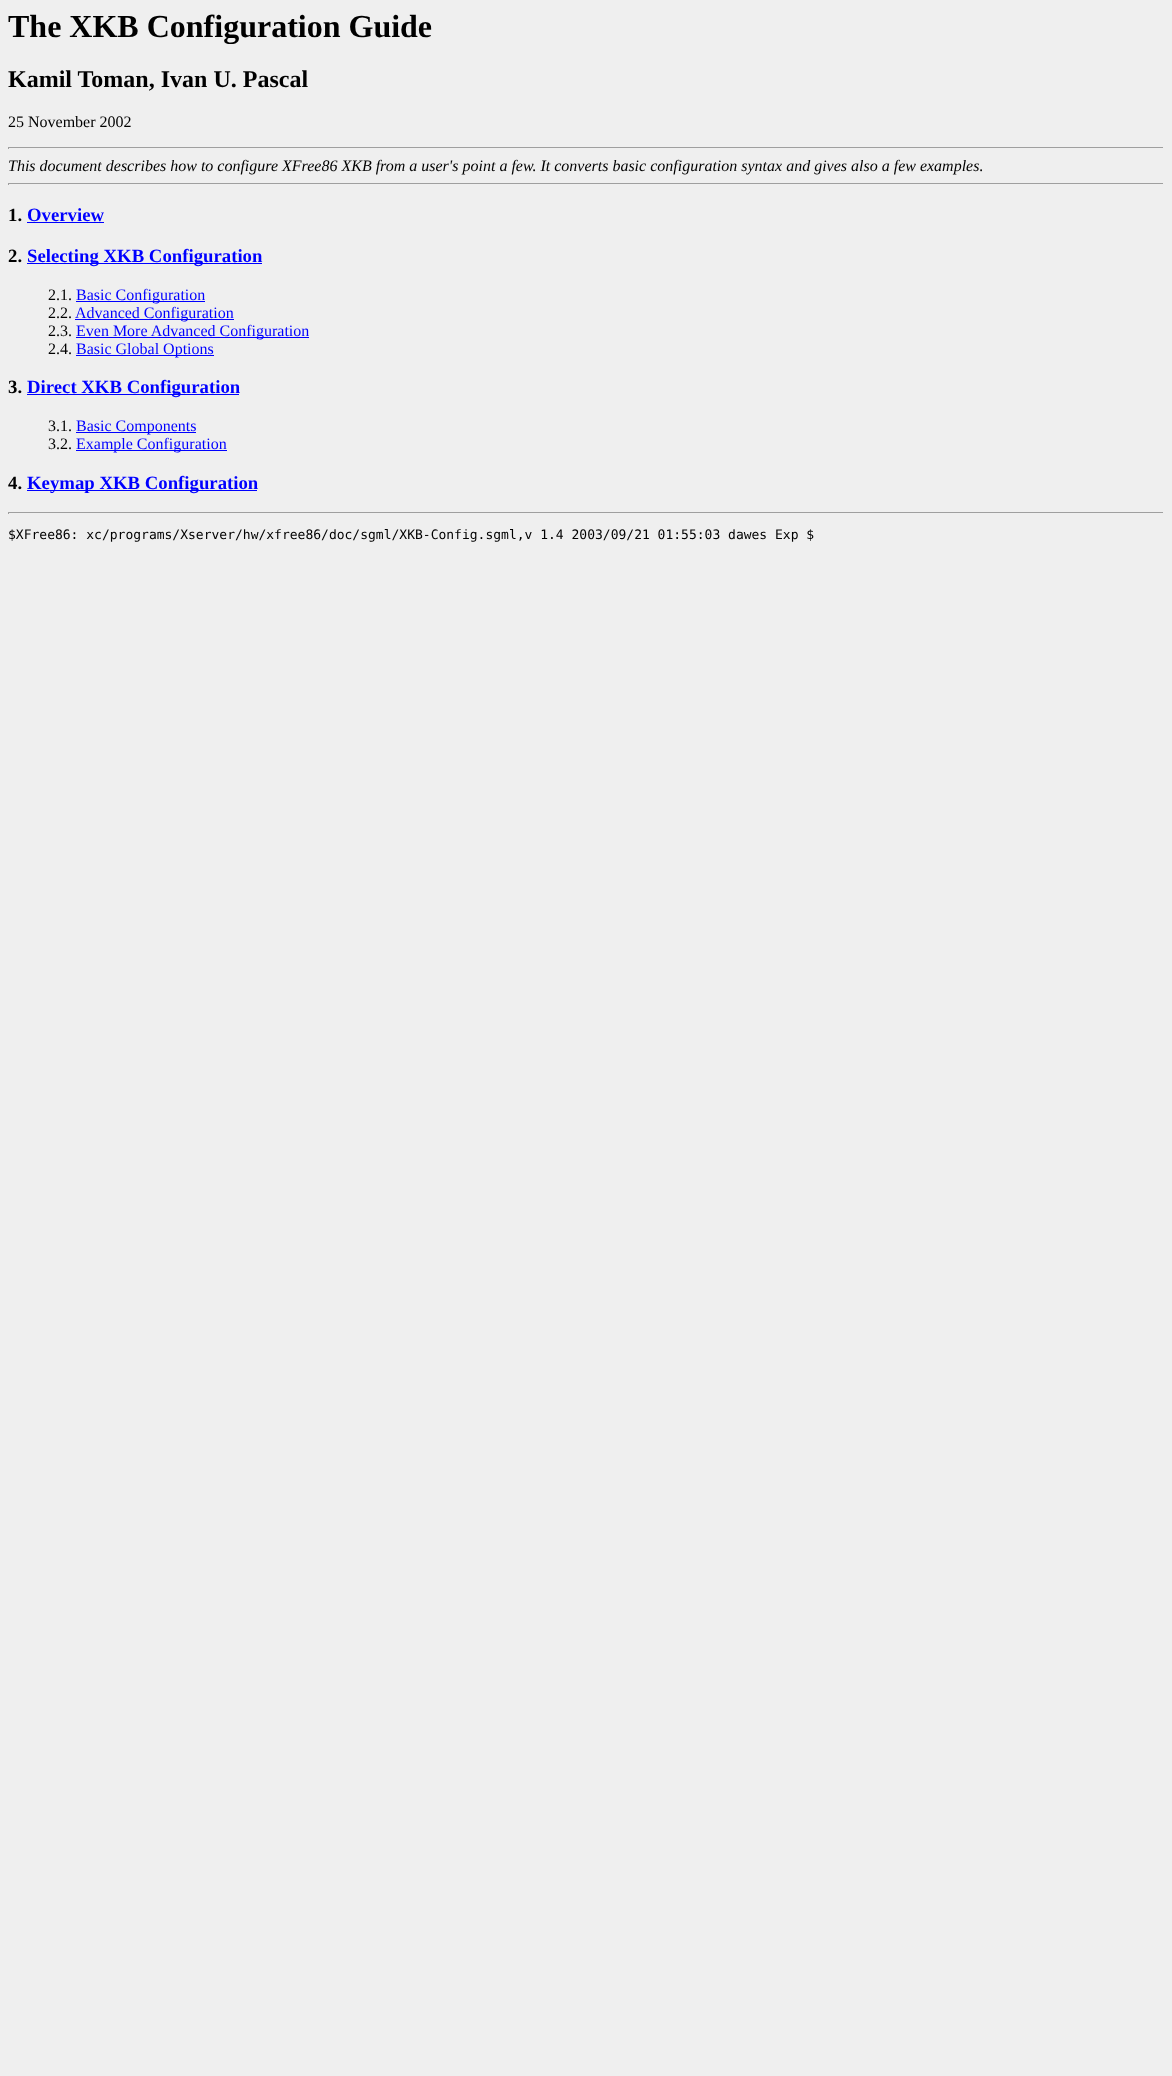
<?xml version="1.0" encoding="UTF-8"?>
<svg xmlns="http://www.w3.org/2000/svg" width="1172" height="2076">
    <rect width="100%" height="100%" fill="#EFEFEF"/>
    <text x="8" y="37" font-family="Liberation Serif" font-size="32" font-weight="700" fill="#000000">The XKB Configuration Guide</text>
    <text x="8" y="87" font-family="Liberation Serif" font-size="24" font-weight="700" fill="#000000">Kamil Toman, Ivan U. Pascal</text>
    <text x="8" y="127" font-family="Liberation Serif" font-size="16" fill="#000000">25 November 2002</text>
    <rect x="8" y="147" width="1156" height="1" fill="#9F9F9F"/>
    <rect x="1163" y="147" width="1" height="2" fill="#EEEEEE"/>
    <rect x="8" y="147" width="1" height="2" fill="#9F9F9F"/>
    <text x="8" y="171" font-family="Liberation Serif" font-size="16" font-style="italic" fill="#000000">This document describes how to configure XFree86 XKB from a user's point a few. It converts basic configuration syntax and gives also a few examples.</text>
    <rect x="8" y="183" width="1156" height="1" fill="#9F9F9F"/>
    <rect x="1163" y="183" width="1" height="2" fill="#EEEEEE"/>
    <rect x="8" y="183" width="1" height="2" fill="#9F9F9F"/>
    <text x="8" y="221" font-family="Liberation Serif" font-size="18.75" font-weight="700" fill="#000000">1.</text>
    <text x="27" y="221" font-family="Liberation Serif" font-size="18.75" font-weight="700" fill="#0000FF">Overview</text>
    <rect x="27" y="222" width="77" height="1" fill="#0000FF"/>
    <text x="8" y="262" font-family="Liberation Serif" font-size="18.75" font-weight="700" fill="#000000">2.</text>
    <rect x="27" y="263" width="235" height="1" fill="#0000FF"/>
    <text x="27" y="262" font-family="Liberation Serif" font-size="18.75" font-weight="700" fill="#0000FF">Selecting XKB Configuration</text>
    <text x="48" y="300" font-family="Liberation Serif" font-size="16" fill="#000000">2.1.</text>
    <rect x="76" y="301" width="129" height="1" fill="#0000FF"/>
    <text x="76" y="300" font-family="Liberation Serif" font-size="16" fill="#0000FF">Basic Configuration</text>
    <text x="48" y="318" font-family="Liberation Serif" font-size="16" fill="#000000">2.2.</text>
    <rect x="75" y="319" width="159" height="1" fill="#0000FF"/>
    <text x="75" y="318" font-family="Liberation Serif" font-size="16" fill="#0000FF">Advanced Configuration</text>
    <text x="48" y="336" font-family="Liberation Serif" font-size="16" fill="#000000">2.3.</text>
    <rect x="76" y="337" width="233" height="1" fill="#0000FF"/>
    <text x="76" y="336" font-family="Liberation Serif" font-size="16" fill="#0000FF">Even More Advanced Configuration</text>
    <text x="48" y="354" font-family="Liberation Serif" font-size="16" fill="#000000">2.4.</text>
    <rect x="76" y="355" width="138" height="1" fill="#0000FF"/>
    <text x="76" y="354" font-family="Liberation Serif" font-size="16" fill="#0000FF">Basic Global Options</text>
    <text x="8" y="393" font-family="Liberation Serif" font-size="18.75" font-weight="700" fill="#000000">3.</text>
    <rect x="27" y="394" width="212" height="1" fill="#0000FF"/>
    <text x="27" y="393" font-family="Liberation Serif" font-size="18.75" font-weight="700" fill="#0000FF">Direct XKB Configuration</text>
    <text x="48" y="431" font-family="Liberation Serif" font-size="16" fill="#000000">3.1.</text>
    <rect x="76" y="432" width="120" height="1" fill="#0000FF"/>
    <text x="76" y="431" font-family="Liberation Serif" font-size="16" fill="#0000FF">Basic Components</text>
    <text x="48" y="449" font-family="Liberation Serif" font-size="16" fill="#000000">3.2.</text>
    <rect x="76" y="450" width="151" height="1" fill="#0000FF"/>
    <text x="76" y="449" font-family="Liberation Serif" font-size="16" fill="#0000FF">Example Configuration</text>
    <text x="8" y="489" font-family="Liberation Serif" font-size="18.75" font-weight="700" fill="#000000">4.</text>
    <rect x="27" y="490" width="230" height="1" fill="#0000FF"/>
    <text x="27" y="489" font-family="Liberation Serif" font-size="18.75" font-weight="700" fill="#0000FF">Keymap XKB Configuration</text>
    <rect x="8" y="512" width="1156" height="1" fill="#9F9F9F"/>
    <rect x="1163" y="512" width="1" height="2" fill="#EEEEEE"/>
    <rect x="8" y="512" width="1" height="2" fill="#9F9F9F"/>
    <text x="8" y="539" font-family="DejaVu Sans Mono" font-size="13" fill="#000000">$XFree86: xc/programs/Xserver/hw/xfree86/doc/sgml/XKB-Config.sgml,v 1.4 2003/09/21 01:55:03 dawes Exp $</text>
</svg>
